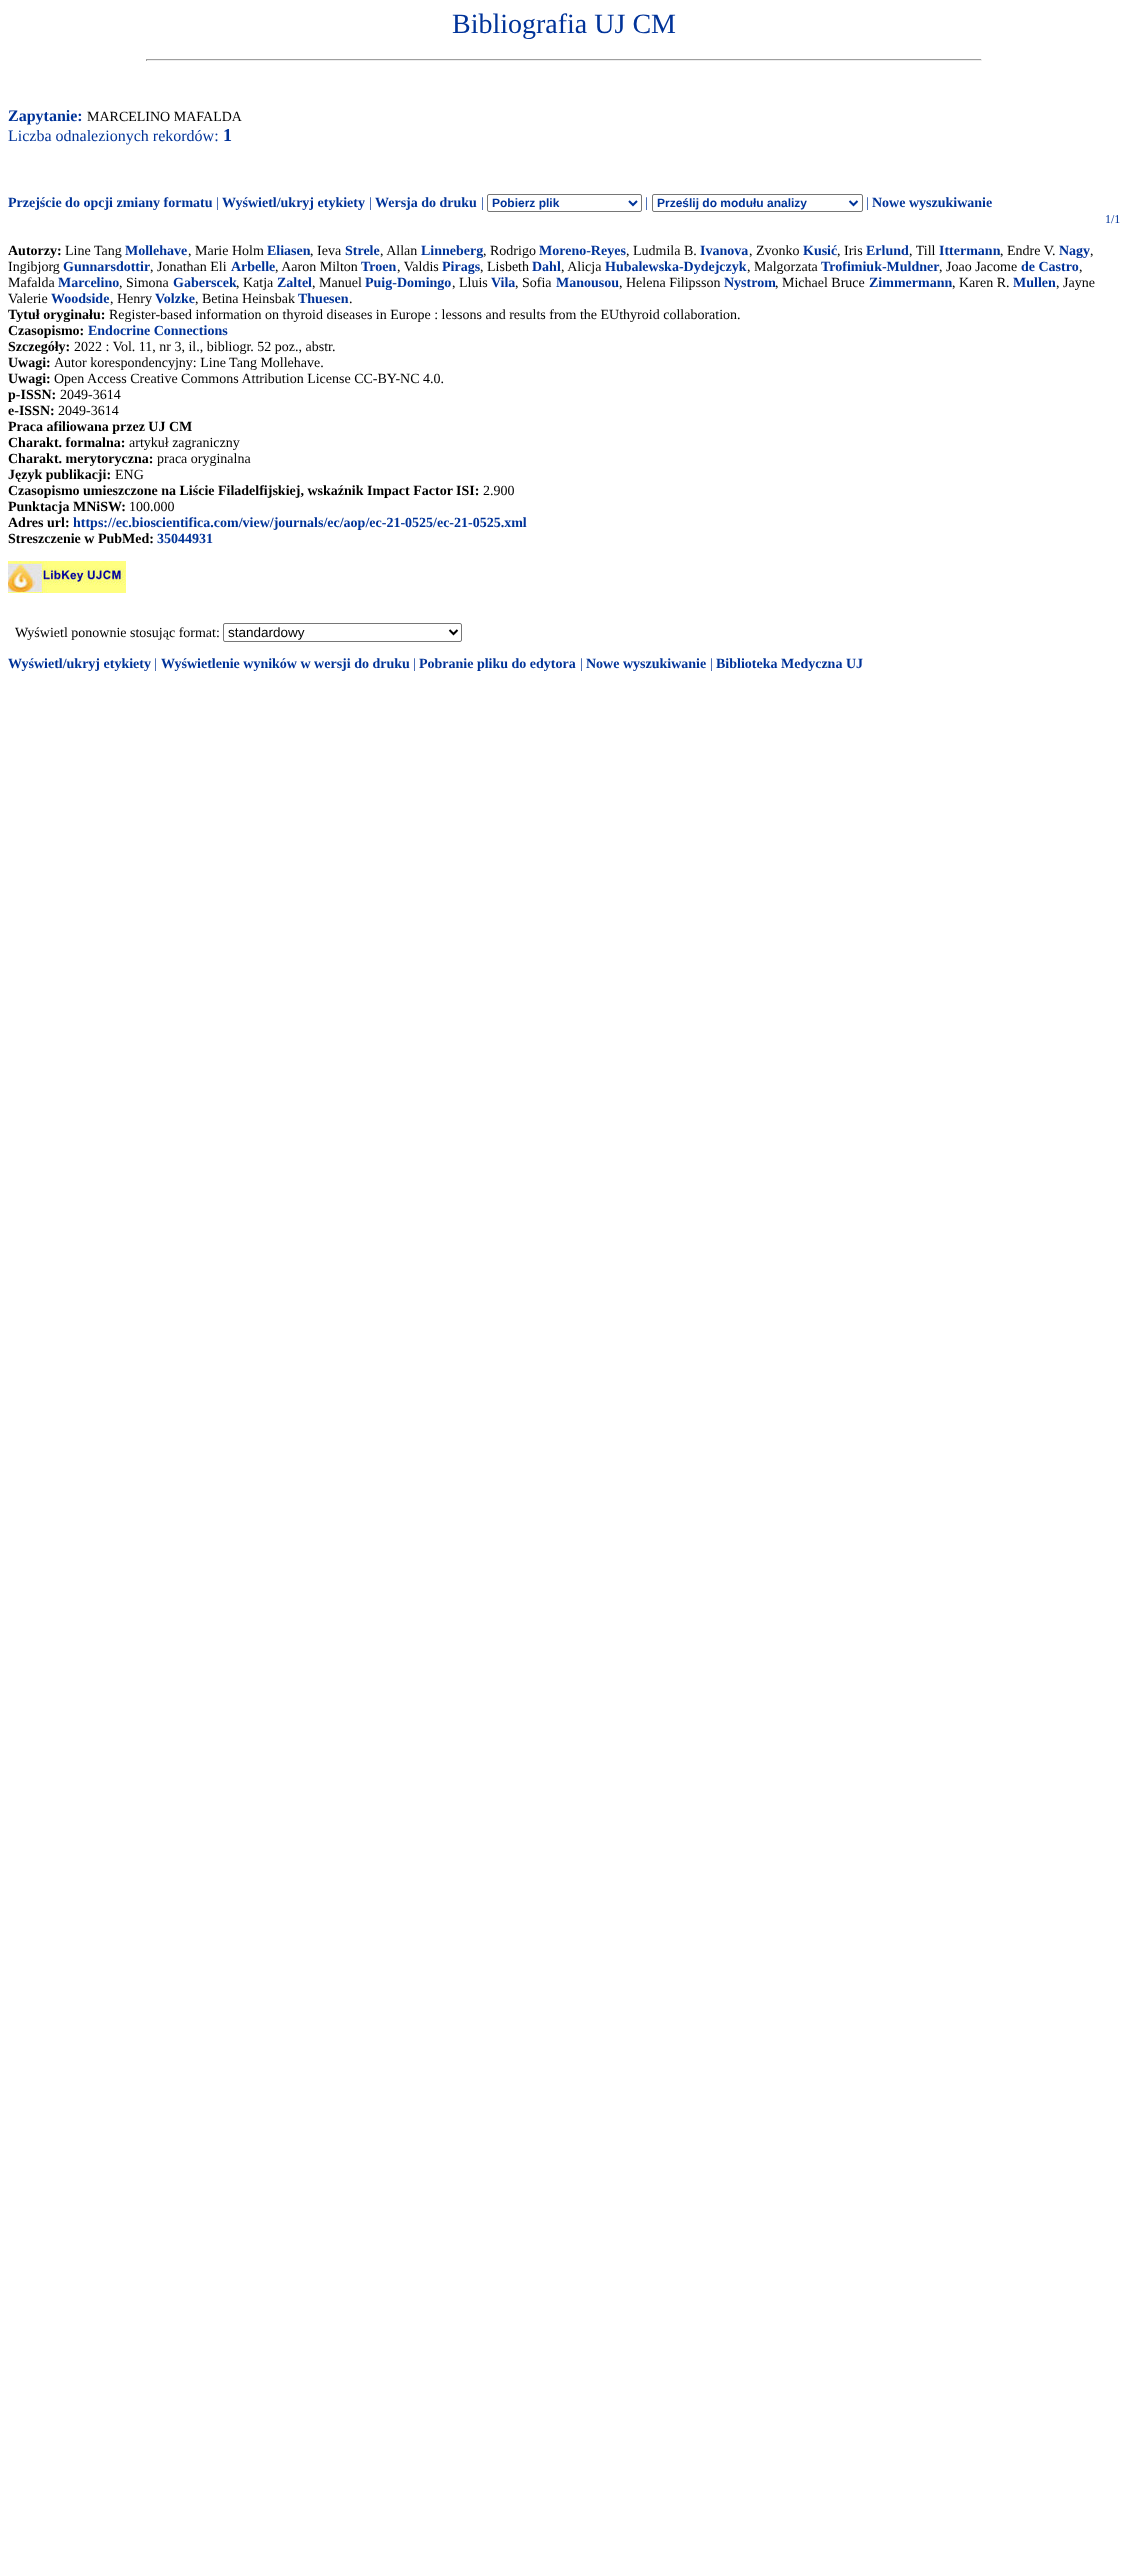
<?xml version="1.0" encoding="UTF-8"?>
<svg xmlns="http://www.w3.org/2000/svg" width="1128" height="2564">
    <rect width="100%" height="100%" fill="#FFFFFF"/>
    <text x="452" y="33" font-family="Liberation Serif" font-size="28" fill="#003399">Bibliografia UJ CM</text>
    <rect x="146" y="59" width="836" height="1" fill="#9F9F9F"/>
    <rect x="981" y="59" width="1" height="2" fill="#EEEEEE"/>
    <rect x="146" y="60" width="836" height="1" fill="#EEEEEE"/>
    <rect x="146" y="59" width="1" height="2" fill="#9F9F9F"/>
    <text x="8" y="121" font-family="Liberation Serif" font-size="16" font-weight="700" fill="#003399">Zapytanie:</text>
    <text x="87" y="121" font-family="Liberation Serif" font-size="14" fill="#000000">MARCELINO MAFALDA</text>
    <text x="8" y="141" font-family="Liberation Serif" font-size="16" fill="#003399">Liczba odnalezionych rekordów:</text>
    <text x="223" y="141" font-family="Liberation Serif" font-size="18" font-weight="700" fill="#003399">1</text>
    <text x="8" y="207" font-family="Liberation Serif" font-size="14" font-weight="700" fill="#003399">Przejście do opcji zmiany formatu</text>
    <text x="216" y="207" font-family="Liberation Serif" font-size="14" fill="#003399">|</text>
    <text x="222" y="207" font-family="Liberation Serif" font-size="14" font-weight="700" fill="#003399">Wyświetl/ukryj etykiety</text>
    <text x="369" y="207" font-family="Liberation Serif" font-size="14" fill="#003399">|</text>
    <text x="375" y="207" font-family="Liberation Serif" font-size="14" font-weight="700" fill="#003399">Wersja do druku</text>
    <text x="481" y="207" font-family="Liberation Serif" font-size="14" fill="#003399">|</text>
    <rect x="487.5" y="194.5" width="154" height="17" rx="1.5" fill="none" stroke="#767676"/>
    <path d="M 629 201 L 633 205 L 637 201" fill="none" stroke="#003399" stroke-width="2"/>
    <text x="492" y="207" font-family="Liberation Sans" font-size="12" font-weight="700" fill="#003399">Pobierz plik</text>
    <text x="645" y="207" font-family="Liberation Serif" font-size="14" fill="#003399">|</text>
    <rect x="652.5" y="194.5" width="210" height="17" rx="1.5" fill="none" stroke="#767676"/>
    <path d="M 849.5 201 L 853.5 205 L 857.5 201" fill="none" stroke="#003399" stroke-width="2"/>
    <text x="657" y="207" font-family="Liberation Sans" font-size="12" font-weight="700" fill="#003399">Prześlij do modułu analizy</text>
    <text x="866" y="207" font-family="Liberation Serif" font-size="14" fill="#003399">|</text>
    <text x="872" y="207" font-family="Liberation Serif" font-size="14" font-weight="700" fill="#003399">Nowe wyszukiwanie</text>
    <text x="1105" y="223" font-family="Liberation Serif" font-size="12" fill="#003399">1/1</text>
    <text x="8" y="255" font-family="Liberation Serif" font-size="14" font-weight="700" fill="#000000">Autorzy:</text>
    <text x="65" y="255" font-family="Liberation Serif" font-size="14" fill="#000000">Line Tang</text>
    <text x="125" y="255" font-family="Liberation Serif" font-size="14" font-weight="700" fill="#003399">Mollehave</text>
    <text x="188" y="255" font-family="Liberation Serif" font-size="14" fill="#000000">, Marie Holm</text>
    <text x="267" y="255" font-family="Liberation Serif" font-size="14" font-weight="700" fill="#003399">Eliasen</text>
    <text x="310" y="255" font-family="Liberation Serif" font-size="14" fill="#000000">, Ieva</text>
    <text x="345" y="255" font-family="Liberation Serif" font-size="14" font-weight="700" fill="#003399">Strele</text>
    <text x="380" y="255" font-family="Liberation Serif" font-size="14" fill="#000000">, Allan</text>
    <text x="421" y="255" font-family="Liberation Serif" font-size="14" font-weight="700" fill="#003399">Linneberg</text>
    <text x="483" y="255" font-family="Liberation Serif" font-size="14" fill="#000000">, Rodrigo</text>
    <text x="539" y="255" font-family="Liberation Serif" font-size="14" font-weight="700" fill="#003399">Moreno-Reyes</text>
    <text x="626" y="255" font-family="Liberation Serif" font-size="14" fill="#000000">, Ludmila B.</text>
    <text x="700" y="255" font-family="Liberation Serif" font-size="14" font-weight="700" fill="#003399">Ivanova</text>
    <text x="749" y="255" font-family="Liberation Serif" font-size="14" fill="#000000">, Zvonko</text>
    <text x="803" y="255" font-family="Liberation Serif" font-size="14" font-weight="700" fill="#003399">Kusić</text>
    <text x="837" y="255" font-family="Liberation Serif" font-size="14" fill="#000000">, Iris</text>
    <text x="866" y="255" font-family="Liberation Serif" font-size="14" font-weight="700" fill="#003399">Erlund</text>
    <text x="909" y="255" font-family="Liberation Serif" font-size="14" fill="#000000">, Till</text>
    <text x="939" y="255" font-family="Liberation Serif" font-size="14" font-weight="700" fill="#003399">Ittermann</text>
    <text x="1000" y="255" font-family="Liberation Serif" font-size="14" fill="#000000">, Endre V.</text>
    <text x="1059" y="255" font-family="Liberation Serif" font-size="14" font-weight="700" fill="#003399">Nagy</text>
    <text x="1090" y="255" font-family="Liberation Serif" font-size="14" fill="#000000">,</text>
    <text x="8" y="271" font-family="Liberation Serif" font-size="14" fill="#000000">Ingibjorg</text>
    <text x="63" y="271" font-family="Liberation Serif" font-size="14" font-weight="700" fill="#003399">Gunnarsdottir</text>
    <text x="150" y="271" font-family="Liberation Serif" font-size="14" fill="#000000">, Jonathan Eli</text>
    <text x="231" y="271" font-family="Liberation Serif" font-size="14" font-weight="700" fill="#003399">Arbelle</text>
    <text x="275" y="271" font-family="Liberation Serif" font-size="14" fill="#000000">, Aaron Milton</text>
    <text x="361" y="271" font-family="Liberation Serif" font-size="14" font-weight="700" fill="#003399">Troen</text>
    <text x="397" y="271" font-family="Liberation Serif" font-size="14" fill="#000000">, Valdis</text>
    <text x="442" y="271" font-family="Liberation Serif" font-size="14" font-weight="700" fill="#003399">Pirags</text>
    <text x="480" y="271" font-family="Liberation Serif" font-size="14" fill="#000000">, Lisbeth</text>
    <text x="532" y="271" font-family="Liberation Serif" font-size="14" font-weight="700" fill="#003399">Dahl</text>
    <text x="561" y="271" font-family="Liberation Serif" font-size="14" fill="#000000">, Alicja</text>
    <text x="605" y="271" font-family="Liberation Serif" font-size="14" font-weight="700" fill="#003399">Hubalewska-Dydejczyk</text>
    <text x="747" y="271" font-family="Liberation Serif" font-size="14" fill="#000000">, Malgorzata</text>
    <text x="821" y="271" font-family="Liberation Serif" font-size="14" font-weight="700" fill="#003399">Trofimiuk-Muldner</text>
    <text x="939" y="271" font-family="Liberation Serif" font-size="14" fill="#000000">, Joao Jacome</text>
    <text x="1021" y="271" font-family="Liberation Serif" font-size="14" font-weight="700" fill="#003399">de Castro</text>
    <text x="1079" y="271" font-family="Liberation Serif" font-size="14" fill="#000000">,</text>
    <text x="8" y="287" font-family="Liberation Serif" font-size="14" fill="#000000">Mafalda</text>
    <text x="58" y="287" font-family="Liberation Serif" font-size="14" font-weight="700" fill="#003399">Marcelino</text>
    <text x="119" y="287" font-family="Liberation Serif" font-size="14" fill="#000000">, Simona</text>
    <text x="173" y="287" font-family="Liberation Serif" font-size="14" font-weight="700" fill="#003399">Gaberscek</text>
    <text x="236" y="287" font-family="Liberation Serif" font-size="14" fill="#000000">, Katja</text>
    <text x="277" y="287" font-family="Liberation Serif" font-size="14" font-weight="700" fill="#003399">Zaltel</text>
    <text x="312" y="287" font-family="Liberation Serif" font-size="14" fill="#000000">, Manuel</text>
    <text x="365" y="287" font-family="Liberation Serif" font-size="14" font-weight="700" fill="#003399">Puig-Domingo</text>
    <text x="452" y="287" font-family="Liberation Serif" font-size="14" fill="#000000">, Lluis</text>
    <text x="491" y="287" font-family="Liberation Serif" font-size="14" font-weight="700" fill="#003399">Vila</text>
    <text x="515" y="287" font-family="Liberation Serif" font-size="14" fill="#000000">, Sofia</text>
    <text x="556" y="287" font-family="Liberation Serif" font-size="14" font-weight="700" fill="#003399">Manousou</text>
    <text x="619" y="287" font-family="Liberation Serif" font-size="14" fill="#000000">, Helena Filipsson</text>
    <text x="724" y="287" font-family="Liberation Serif" font-size="14" font-weight="700" fill="#003399">Nystrom</text>
    <text x="775" y="287" font-family="Liberation Serif" font-size="14" fill="#000000">, Michael Bruce</text>
    <text x="869" y="287" font-family="Liberation Serif" font-size="14" font-weight="700" fill="#003399">Zimmermann</text>
    <text x="952" y="287" font-family="Liberation Serif" font-size="14" fill="#000000">, Karen R.</text>
    <text x="1013" y="287" font-family="Liberation Serif" font-size="14" font-weight="700" fill="#003399">Mullen</text>
    <text x="1056" y="287" font-family="Liberation Serif" font-size="14" fill="#000000">, Jayne</text>
    <text x="8" y="303" font-family="Liberation Serif" font-size="14" fill="#000000">Valerie</text>
    <text x="51" y="303" font-family="Liberation Serif" font-size="14" font-weight="700" fill="#003399">Woodside</text>
    <text x="110" y="303" font-family="Liberation Serif" font-size="14" fill="#000000">, Henry</text>
    <text x="155" y="303" font-family="Liberation Serif" font-size="14" font-weight="700" fill="#003399">Volzke</text>
    <text x="195" y="303" font-family="Liberation Serif" font-size="14" fill="#000000">, Betina Heinsbak</text>
    <text x="298" y="303" font-family="Liberation Serif" font-size="14" font-weight="700" fill="#003399">Thuesen</text>
    <text x="349" y="303" font-family="Liberation Serif" font-size="14" fill="#000000">.</text>
    <text x="8" y="319" font-family="Liberation Serif" font-size="14" font-weight="700" fill="#000000">Tytuł oryginału:</text>
    <text x="109" y="319" font-family="Liberation Serif" font-size="14" fill="#000000">Register-based information on thyroid diseases in Europe : lessons and results from the EUthyroid collaboration.</text>
    <text x="8" y="335" font-family="Liberation Serif" font-size="14" font-weight="700" fill="#000000">Czasopismo:</text>
    <text x="88" y="335" font-family="Liberation Serif" font-size="14" font-weight="700" fill="#003399">Endocrine Connections</text>
    <text x="8" y="351" font-family="Liberation Serif" font-size="14" font-weight="700" fill="#000000">Szczegóły:</text>
    <text x="74" y="351" font-family="Liberation Serif" font-size="14" fill="#000000">2022 : Vol. 11, nr 3, il., bibliogr. 52 poz., abstr.</text>
    <text x="8" y="367" font-family="Liberation Serif" font-size="14" font-weight="700" fill="#000000">Uwagi:</text>
    <text x="54" y="367" font-family="Liberation Serif" font-size="14" fill="#000000">Autor korespondencyjny: Line Tang Mollehave.</text>
    <text x="8" y="383" font-family="Liberation Serif" font-size="14" font-weight="700" fill="#000000">Uwagi:</text>
    <text x="54" y="383" font-family="Liberation Serif" font-size="14" fill="#000000">Open Access Creative Commons Attribution License CC-BY-NC 4.0.</text>
    <text x="8" y="399" font-family="Liberation Serif" font-size="14" font-weight="700" fill="#000000">p-ISSN:</text>
    <text x="60" y="399" font-family="Liberation Serif" font-size="14" fill="#000000">2049-3614</text>
    <text x="8" y="415" font-family="Liberation Serif" font-size="14" font-weight="700" fill="#000000">e-ISSN:</text>
    <text x="58" y="415" font-family="Liberation Serif" font-size="14" fill="#000000">2049-3614</text>
    <text font-family="Liberation Serif" font-size="14" font-weight="700" fill="#000000">
        <tspan x="8" y="431">Praca afiliowana przez UJ CM</tspan>
        <tspan x="8" y="447">Charakt. formalna:</tspan>
    </text>
    <text x="129" y="447" font-family="Liberation Serif" font-size="14" fill="#000000">artykuł zagraniczny</text>
    <text x="8" y="463" font-family="Liberation Serif" font-size="14" font-weight="700" fill="#000000">Charakt. merytoryczna:</text>
    <text x="157" y="463" font-family="Liberation Serif" font-size="14" fill="#000000">praca oryginalna</text>
    <text x="8" y="479" font-family="Liberation Serif" font-size="14" font-weight="700" fill="#000000">Język publikacji:</text>
    <text x="115" y="479" font-family="Liberation Serif" font-size="14" fill="#000000">ENG</text>
    <text x="8" y="495" font-family="Liberation Serif" font-size="14" font-weight="700" fill="#000000">Czasopismo umieszczone na Liście Filadelfijskiej, wskaźnik Impact Factor ISI:</text>
    <text x="483" y="495" font-family="Liberation Serif" font-size="14" fill="#000000">2.900</text>
    <text x="8" y="511" font-family="Liberation Serif" font-size="14" font-weight="700" fill="#000000">Punktacja MNiSW:</text>
    <text x="129" y="511" font-family="Liberation Serif" font-size="14" fill="#000000">100.000</text>
    <text x="8" y="527" font-family="Liberation Serif" font-size="14" font-weight="700" fill="#000000">Adres url:</text>
    <text x="73" y="527" font-family="Liberation Serif" font-size="14" font-weight="700" fill="#003399">https://ec.bioscientifica.com/view/journals/ec/aop/ec-21-0525/ec-21-0525.xml</text>
    <text x="8" y="543" font-family="Liberation Serif" font-size="14" font-weight="700" fill="#000000">Streszczenie w PubMed:</text>
    <text x="157" y="543" font-family="Liberation Serif" font-size="14" font-weight="700" fill="#003399">35044931</text>
    <image x="8" y="561" width="118" height="32" href="img_01.png"/>
    <text x="15" y="637" font-family="Liberation Serif" font-size="14" fill="#000000">Wyświetl ponownie stosując format:</text>
    <rect x="223.5" y="623.5" width="238" height="18" rx="1.5" fill="none" stroke="#767676"/>
    <path d="M 449.5 630 L 453.5 634 L 457.5 630" fill="none" stroke="#000000" stroke-width="2"/>
    <text x="228" y="637" font-family="Liberation Sans" font-size="13.5" fill="#000000">standardowy</text>
    <text x="8" y="668" font-family="Liberation Serif" font-size="14" font-weight="700" fill="#003399">Wyświetl/ukryj etykiety</text>
    <text x="154" y="668" font-family="Liberation Serif" font-size="14" fill="#003399">|</text>
    <text x="161" y="668" font-family="Liberation Serif" font-size="14" font-weight="700" fill="#003399">Wyświetlenie wyników w wersji do druku</text>
    <text x="413" y="668" font-family="Liberation Serif" font-size="14" fill="#003399">|</text>
    <text x="419" y="668" font-family="Liberation Serif" font-size="14" font-weight="700" fill="#003399">Pobranie pliku do edytora</text>
    <text x="580" y="668" font-family="Liberation Serif" font-size="14" fill="#003399">|</text>
    <text x="586" y="668" font-family="Liberation Serif" font-size="14" font-weight="700" fill="#003399">Nowe wyszukiwanie</text>
    <text x="710" y="668" font-family="Liberation Serif" font-size="14" fill="#003399">|</text>
    <text x="716" y="668" font-family="Liberation Serif" font-size="14" font-weight="700" fill="#003399">Biblioteka Medyczna UJ</text>
</svg>
